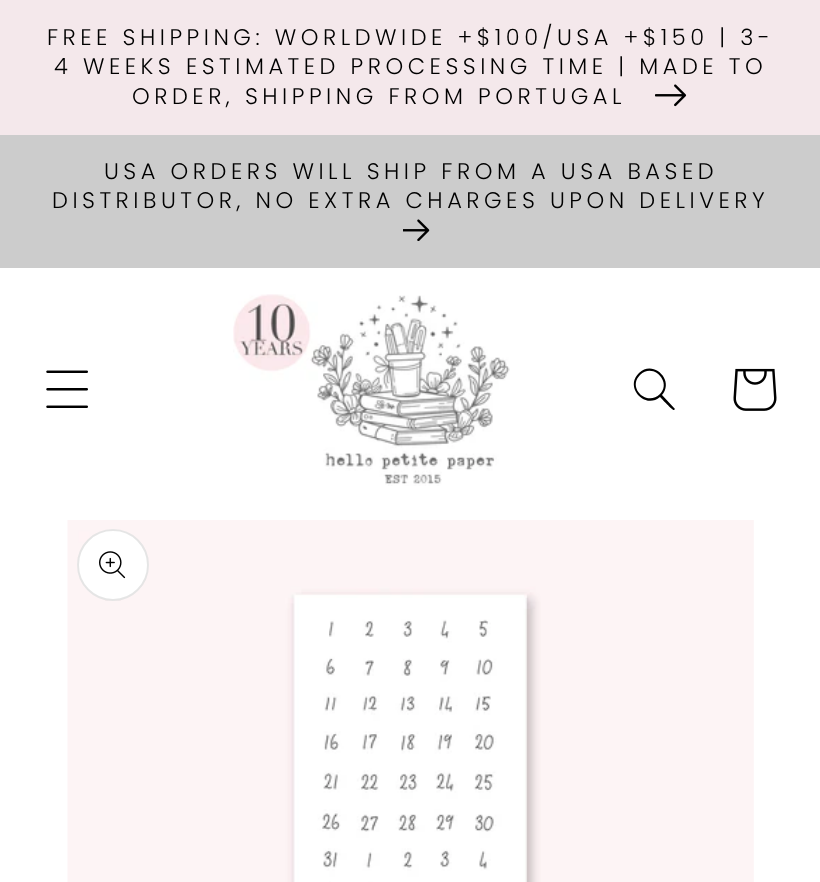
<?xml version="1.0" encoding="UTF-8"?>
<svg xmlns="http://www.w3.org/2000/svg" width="820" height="882">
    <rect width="100%" height="100%" fill="#FFFFFF"/>
    <rect x="0" y="0" width="820" height="135" fill="#F4E8EB"/>
    <text x="47" y="45" font-family="Poppins" font-size="22.5" font-weight="300" letter-spacing="4.5" fill="#000000">FREE SHIPPING: WORLDWIDE +$100/USA +$150 | 3-</text>
    <text x="54" y="74" font-family="Poppins" font-size="22.5" font-weight="300" letter-spacing="4.5" fill="#000000">4 WEEKS ESTIMATED PROCESSING TIME | MADE TO</text>
    <text x="132" y="104" font-family="Poppins" font-size="22.5" font-weight="300" letter-spacing="4.5" fill="#000000">ORDER, SHIPPING FROM PORTUGAL</text>
    <image x="655" y="84" width="32" height="23" href="img_01.png"/>
    <rect x="0" y="135" width="820" height="133" fill="#CCCCCC"/>
    <text x="104" y="179" font-family="Poppins" font-size="22.5" font-weight="300" letter-spacing="4.5" fill="#000000">USA ORDERS WILL SHIP FROM A USA BASED</text>
    <text x="52" y="208" font-family="Poppins" font-size="22.5" font-weight="300" letter-spacing="4.5" fill="#000000">DISTRIBUTOR, NO EXTRA CHARGES UPON DELIVERY</text>
    <image x="403" y="219" width="27" height="22" href="img_02.png"/>
    <image x="46" y="370" width="42" height="38" href="img_03.png"/>
    <image x="233" y="294" width="277" height="192" href="img_04.png"/>
    <path d="M 660 394 C 647 407 627 388 640 375 C 653 362 672 382 660 394 Z M 660 397 C 645 410 624 387 639 373 C 653 359 675 380 662 395 L 675 409 L 674 410 C 673 411 662 399 660 397 Z" fill="#000000" fill-rule="evenodd"/>
    <image x="733" y="368" width="44" height="43" href="img_05.png"/>
    <image x="67" y="520" width="687" height="362" href="img_06.png"/>
    <circle cx="113" cy="565" r="36" fill="#FFFFFF"/>
    <circle cx="113" cy="565" r="35" fill="none" stroke="#000000" stroke-opacity="0.1" stroke-width="2"/>
    <image x="99" y="551" width="27" height="28" href="img_07.png"/>
</svg>
